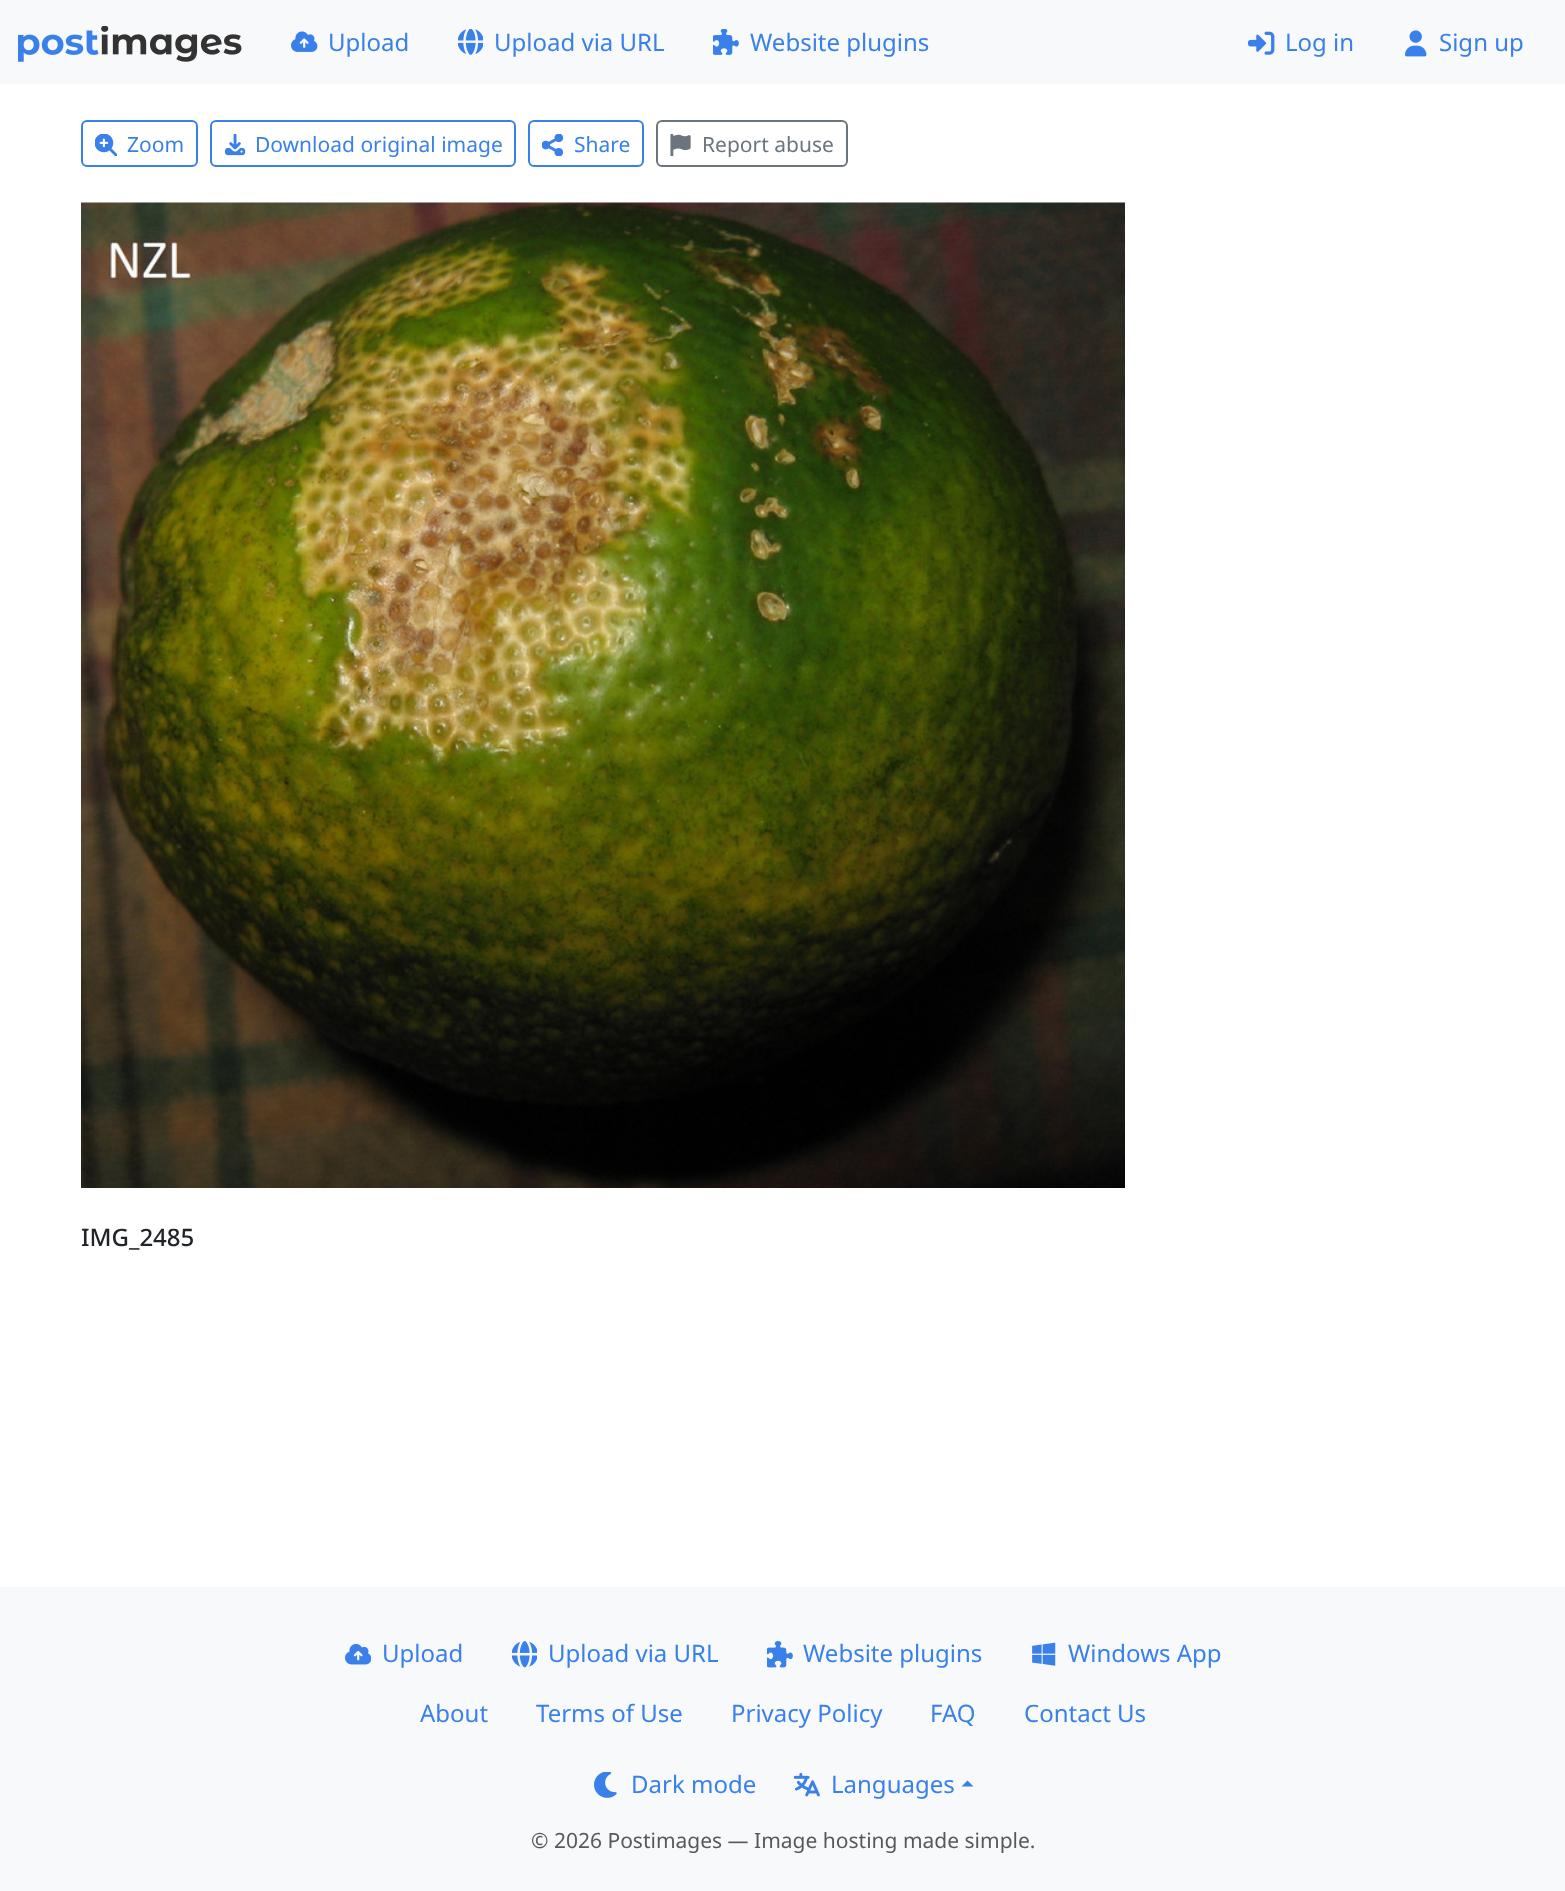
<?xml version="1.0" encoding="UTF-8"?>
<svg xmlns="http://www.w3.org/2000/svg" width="1565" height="1891">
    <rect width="100%" height="100%" fill="#FFFFFF"/>
    <rect x="0" y="0" width="1565" height="84" fill="#F8F9FA"/>
    <image x="18" y="26" width="224" height="36" href="img_01.png"/>
    <image x="291" y="31" width="27" height="21" href="img_02.png"/>
    <text x="328" y="51" font-family="Noto Sans" font-size="24" fill="#3A80EA">Upload</text>
    <image x="458" y="29" width="25" height="26" href="img_03.png"/>
    <text x="494" y="51" font-family="Noto Sans" font-size="24" fill="#3A80EA">Upload via URL</text>
    <image x="713" y="29" width="26" height="26" href="img_04.png"/>
    <text x="750" y="51" font-family="Noto Sans" font-size="24" fill="#3A80EA">Website plugins</text>
    <image x="1248" y="31" width="27" height="24" href="img_05.png"/>
    <text x="1285" y="51" font-family="Noto Sans" font-size="24" fill="#3A80EA">Log in</text>
    <image x="1405" y="30" width="22" height="27" href="img_06.png"/>
    <text x="1439" y="51" font-family="Noto Sans" font-size="24" fill="#3A80EA">Sign up</text>
    <rect x="82" y="121" width="115" height="45" rx="5" fill="none" stroke="#3A80EA" stroke-width="2"/>
    <image x="95" y="134" width="22" height="22" href="img_07.png"/>
    <text x="127" y="152" font-family="Noto Sans" font-size="21" fill="#3A80EA">Zoom</text>
    <rect x="211" y="121" width="304" height="45" rx="5" fill="none" stroke="#3A80EA" stroke-width="2"/>
    <image x="224" y="134" width="22" height="22" href="img_08.png"/>
    <text x="255" y="152" font-family="Noto Sans" font-size="21" fill="#3A80EA">Download original image</text>
    <rect x="529" y="121" width="114" height="45" rx="5" fill="none" stroke="#3A80EA" stroke-width="2"/>
    <image x="542" y="134" width="22" height="22" href="img_09.png"/>
    <text x="574" y="152" font-family="Noto Sans" font-size="21" fill="#3A80EA">Share</text>
    <rect x="657" y="121" width="190" height="45" rx="5" fill="none" stroke="#6C757D" stroke-width="2"/>
    <image x="670" y="134" width="21" height="22" href="img_10.png"/>
    <text x="702" y="152" font-family="Noto Sans" font-size="21" fill="#6C757D">Report abuse</text>
    <image x="81" y="202" width="1044" height="986" href="img_11.png"/>
    <text x="81" y="1246" font-family="Noto Sans" font-size="24" font-weight="500" fill="#212529">IMG_2485</text>
    <rect x="0" y="1587" width="1565" height="304" fill="#F8F9FA"/>
    <image x="345" y="1643" width="26" height="22" href="img_12.png"/>
    <text x="382" y="1662" font-family="Noto Sans" font-size="24" fill="#3A80EA">Upload</text>
    <image x="512" y="1641" width="25" height="27" href="img_13.png"/>
    <text x="548" y="1662" font-family="Noto Sans" font-size="24" fill="#3A80EA">Upload via URL</text>
    <image x="767" y="1641" width="26" height="27" href="img_14.png"/>
    <text x="803" y="1662" font-family="Noto Sans" font-size="24" fill="#3A80EA">Website plugins</text>
    <image x="1032" y="1642" width="24" height="24" href="img_15.png"/>
    <text x="1068" y="1662" font-family="Noto Sans" font-size="24" fill="#3A80EA">Windows App</text>
    <text x="420" y="1722" font-family="Noto Sans" font-size="24" fill="#3A80EA">About</text>
    <text x="536" y="1722" font-family="Noto Sans" font-size="24" fill="#3A80EA">Terms of Use</text>
    <text x="731" y="1722" font-family="Noto Sans" font-size="24" fill="#3A80EA">Privacy Policy</text>
    <text x="930" y="1722" font-family="Noto Sans" font-size="24" fill="#3A80EA">FAQ</text>
    <text x="1024" y="1722" font-family="Noto Sans" font-size="24" fill="#3A80EA">Contact Us</text>
    <image x="594" y="1772" width="23" height="26" href="img_16.png"/>
    <text x="631" y="1793" font-family="Noto Sans" font-size="24" fill="#3A80EA">Dark mode</text>
    <image x="794" y="1773" width="26" height="24" href="img_17.png"/>
    <text x="831" y="1793" font-family="Noto Sans" font-size="24" fill="#3A80EA">Languages</text>
    <path d="M 973.5 1786.5 H 961.5 L 967.5 1780.5 Z" fill="#3A80EA"/>
    <text x="531" y="1848" font-family="Noto Sans" font-size="21" fill="#575A5D">© 2026 Postimages — Image hosting made simple.</text>
</svg>
